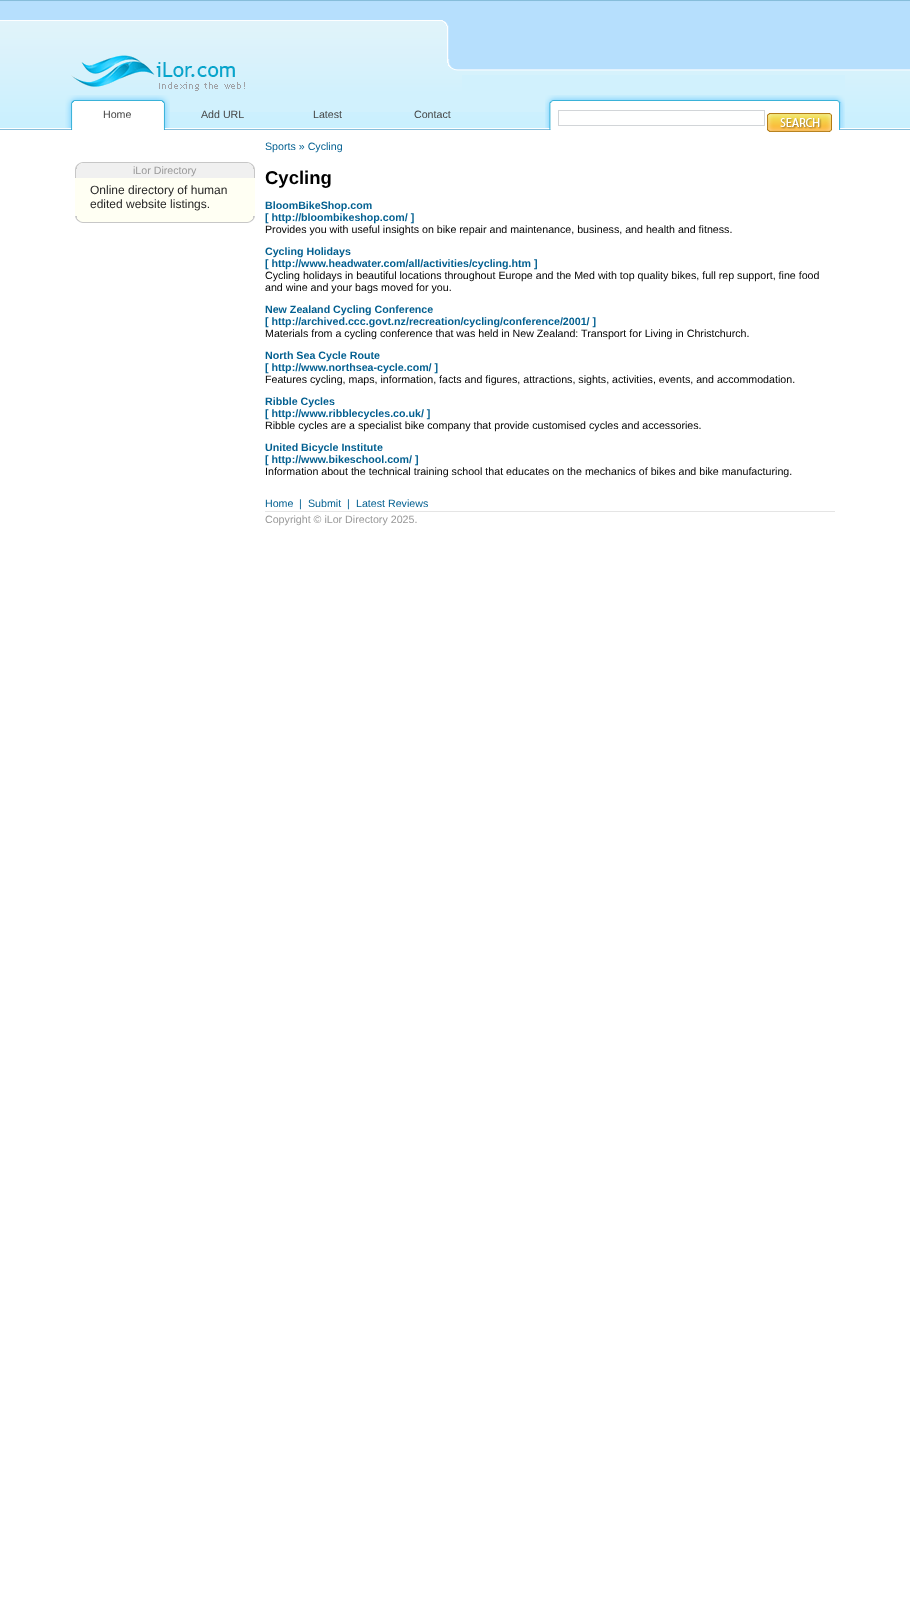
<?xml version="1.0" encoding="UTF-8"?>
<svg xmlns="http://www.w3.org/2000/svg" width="910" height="1608">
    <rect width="100%" height="100%" fill="#FFFFFF"/>
    <image x="0" y="0" width="65" height="130" href="img_01.png"/>
    <rect x="462" y="75" width="383" height="20" fill="#D1F1FD"/>
    <image x="462" y="0" width="383" height="75" href="img_02.png"/>
    <rect x="65" y="91" width="397" height="4" fill="#D1F1FD"/>
    <image x="65" y="0" width="397" height="91" href="img_03.png"/>
    <rect x="170" y="95" width="375" height="17" fill="#D1F1FD"/>
    <image x="170" y="112" width="375" height="18" href="img_04.png"/>
    <image x="65" y="95" width="105" height="35" href="img_05.png"/>
    <text x="103" y="118" font-family="Liberation Sans" font-size="10.67" fill="#464646">Home</text>
    <text x="201" y="118" font-family="Liberation Sans" font-size="10.67" fill="#464646">Add URL</text>
    <text x="313" y="118" font-family="Liberation Sans" font-size="10.67" fill="#464646">Latest</text>
    <text x="414" y="118" font-family="Liberation Sans" font-size="10.67" fill="#464646">Contact</text>
    <image x="545" y="95" width="300" height="35" href="img_06.png"/>
    <rect x="558.5" y="110.5" width="206" height="15" fill="none" stroke="#D2D5D8"/>
    <image x="767" y="113" width="65" height="19" href="img_07.png"/>
    <image x="845" y="0" width="65" height="130" href="img_08.png"/>
    <text x="265" y="150" font-family="Liberation Sans" font-size="10.67" fill="#025F90">Sports » Cycling</text>
    <image x="75" y="162" width="180" height="16" href="img_09.png"/>
    <text x="133" y="174" font-family="Liberation Sans" font-size="10.67" fill="#999999">iLor Directory</text>
    <rect x="75" y="178" width="180" height="38" fill="#FFFFF3"/>
    <text font-family="Liberation Sans" font-size="12" fill="#262626">
        <tspan x="90" y="194">Online directory of human</tspan>
        <tspan x="90" y="208">edited website listings.</tspan>
    </text>
    <image x="75" y="216" width="180" height="7" href="img_10.png"/>
    <text x="265" y="184" font-family="Liberation Sans" font-size="18.5" font-weight="700" fill="#000000">Cycling</text>
    <text font-family="Liberation Sans" font-size="10.67" font-weight="700" fill="#025F90">
        <tspan x="265" y="209">BloomBikeShop.com</tspan>
        <tspan x="265" y="221">[ http://bloombikeshop.com/ ]</tspan>
    </text>
    <text x="265" y="233" font-family="Liberation Sans" font-size="10.67" fill="#000000">Provides you with useful insights on bike repair and maintenance, business, and health and fitness.</text>
    <text font-family="Liberation Sans" font-size="10.67" font-weight="700" fill="#025F90">
        <tspan x="265" y="255">Cycling Holidays</tspan>
        <tspan x="265" y="267">[ http://www.headwater.com/all/activities/cycling.htm ]</tspan>
    </text>
    <text font-family="Liberation Sans" font-size="10.67" fill="#000000">
        <tspan x="265" y="279">Cycling holidays in beautiful locations throughout Europe and the Med with top quality bikes, full rep support, fine food</tspan>
        <tspan x="265" y="291">and wine and your bags moved for you.</tspan>
    </text>
    <text font-family="Liberation Sans" font-size="10.67" font-weight="700" fill="#025F90">
        <tspan x="265" y="313">New Zealand Cycling Conference</tspan>
        <tspan x="265" y="325">[ http://archived.ccc.govt.nz/recreation/cycling/conference/2001/ ]</tspan>
    </text>
    <text x="265" y="337" font-family="Liberation Sans" font-size="10.67" fill="#000000">Materials from a cycling conference that was held in New Zealand: Transport for Living in Christchurch.</text>
    <text font-family="Liberation Sans" font-size="10.67" font-weight="700" fill="#025F90">
        <tspan x="265" y="359">North Sea Cycle Route</tspan>
        <tspan x="265" y="371">[ http://www.northsea-cycle.com/ ]</tspan>
    </text>
    <text x="265" y="383" font-family="Liberation Sans" font-size="10.67" fill="#000000">Features cycling, maps, information, facts and figures, attractions, sights, activities, events, and accommodation.</text>
    <text font-family="Liberation Sans" font-size="10.67" font-weight="700" fill="#025F90">
        <tspan x="265" y="405">Ribble Cycles</tspan>
        <tspan x="265" y="417">[ http://www.ribblecycles.co.uk/ ]</tspan>
    </text>
    <text x="265" y="429" font-family="Liberation Sans" font-size="10.67" fill="#000000">Ribble cycles are a specialist bike company that provide customised cycles and accessories.</text>
    <text font-family="Liberation Sans" font-size="10.67" font-weight="700" fill="#025F90">
        <tspan x="265" y="451">United Bicycle Institute</tspan>
        <tspan x="265" y="463">[ http://www.bikeschool.com/ ]</tspan>
    </text>
    <text x="265" y="475" font-family="Liberation Sans" font-size="10.67" fill="#000000">Information about the technical training school that educates on the mechanics of bikes and bike manufacturing.</text>
    <text x="265" y="507" font-family="Liberation Sans" font-size="10.67" fill="#025F90">Home</text>
    <text x="299" y="507" font-family="Liberation Sans" font-size="10.67" fill="#025F90">|</text>
    <text x="308" y="507" font-family="Liberation Sans" font-size="10.67" fill="#025F90">Submit</text>
    <text x="347" y="507" font-family="Liberation Sans" font-size="10.67" fill="#025F90">|</text>
    <text x="356" y="507" font-family="Liberation Sans" font-size="10.67" fill="#025F90">Latest Reviews</text>
    <rect x="265" y="511" width="570" height="1" fill="#E5E5E5"/>
    <text x="265" y="523" font-family="Liberation Sans" font-size="10.67" fill="#999999">Copyright © iLor Directory 2025.</text>
</svg>
